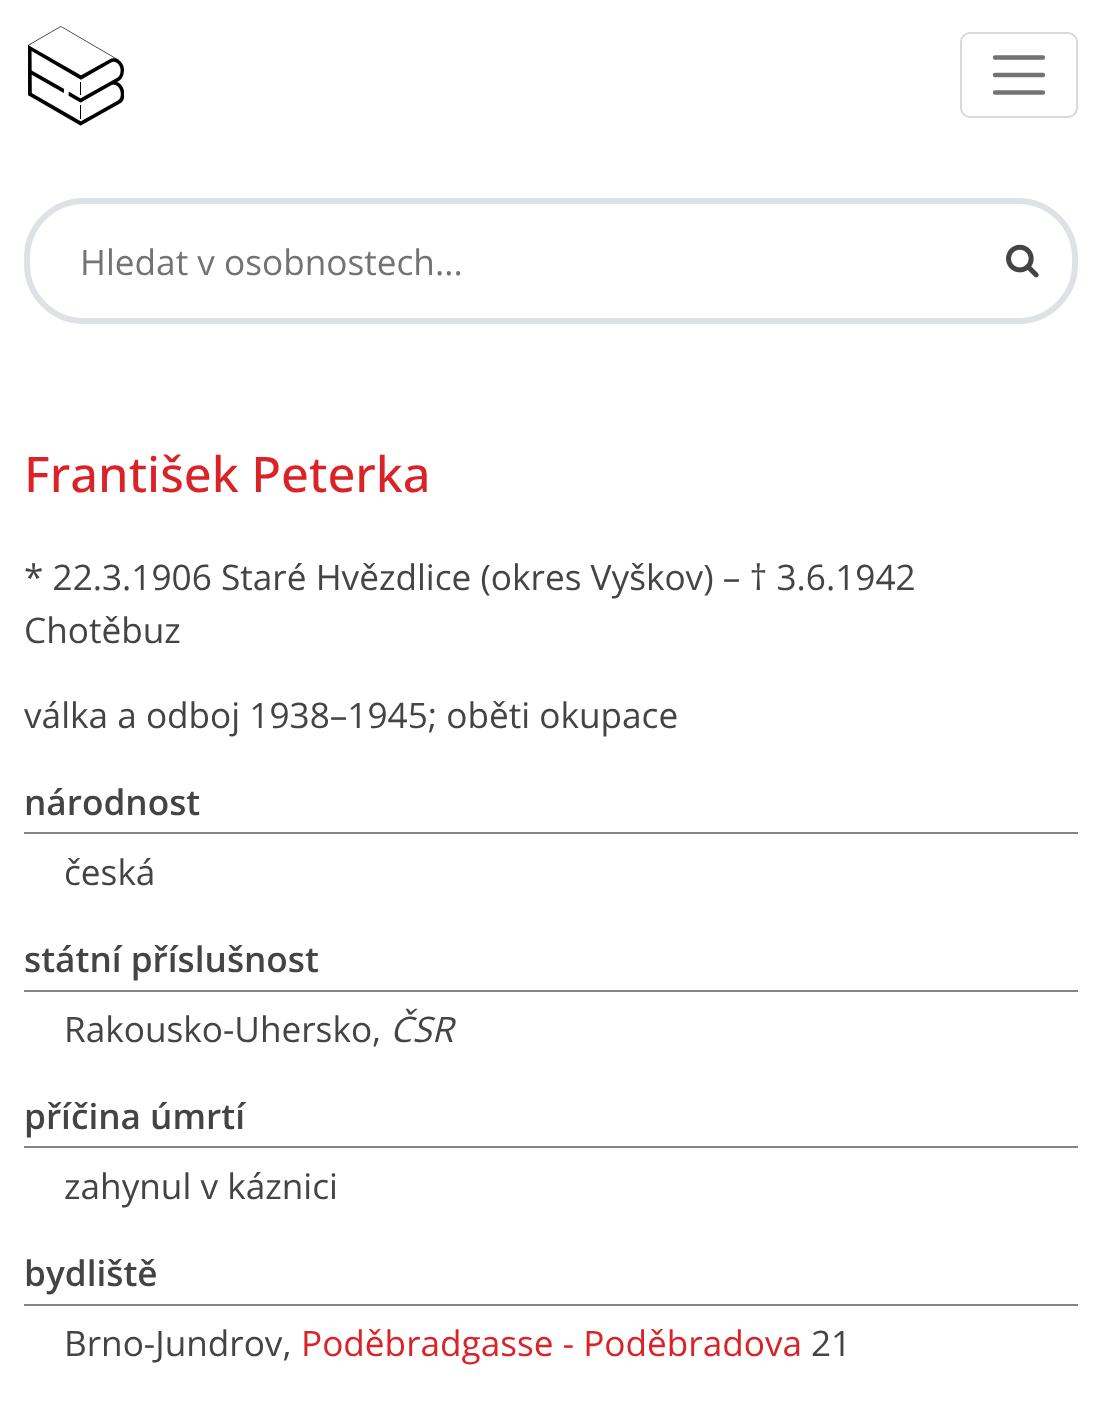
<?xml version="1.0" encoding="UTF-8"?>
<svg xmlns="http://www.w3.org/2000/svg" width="1102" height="1422">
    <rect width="100%" height="100%" fill="#FFFFFF"/>
    <image x="28" y="26" width="96" height="100" href="img_01.png"/>
    <rect x="961" y="33" width="116" height="84" rx="9" fill="none" stroke="#D9D9D9" stroke-width="2"/>
    <path d="M 995 57.5 H 1043 M 995 75 H 1043 M 995 92.5 H 1043" fill="none" stroke="#737373" stroke-width="4.4" stroke-linecap="round"/>
    <rect x="27" y="201" width="1048" height="120" rx="57" fill="none" stroke="#DEE2E6" stroke-width="6"/>
    <text x="80" y="275" font-family="Open Sans" font-size="35.2" fill="#737373">Hledat v osobnostech...</text>
    <image x="1006" y="244" width="33" height="34" href="img_02.png"/>
    <text x="24" y="492" font-family="Open Sans" font-size="49" font-weight="500" fill="#DA2327">František Peterka</text>
    <text font-family="Open Sans" font-size="35.2" fill="#444444">
        <tspan x="24" y="590">* 22.3.1906 Staré Hvězdlice (okres Vyškov) – † 3.6.1942</tspan>
        <tspan x="24" y="643">Chotěbuz</tspan>
    </text>
    <text x="24" y="728" font-family="Open Sans" font-size="35.2" fill="#444444">válka a odboj 1938–1945; oběti okupace</text>
    <rect x="24" y="832" width="1054" height="2" fill="#848484"/>
    <text x="24" y="815" font-family="Open Sans" font-size="35.2" font-weight="600" fill="#444444">národnost</text>
    <text x="64" y="885" font-family="Open Sans" font-size="35.2" fill="#444444">česká</text>
    <rect x="24" y="990" width="1054" height="2" fill="#848484"/>
    <text x="24" y="972" font-family="Open Sans" font-size="35.2" font-weight="600" fill="#444444">státní příslušnost</text>
    <text x="64" y="1042" font-family="Open Sans" font-size="35.2" fill="#444444">Rakousko-Uhersko,</text>
    <text x="390" y="1042" font-family="Open Sans" font-size="35.2" font-style="italic" fill="#444444">ČSR</text>
    <rect x="24" y="1146" width="1054" height="2" fill="#848484"/>
    <text x="24" y="1129" font-family="Open Sans" font-size="35.2" font-weight="600" fill="#444444">příčina úmrtí</text>
    <text x="64" y="1199" font-family="Open Sans" font-size="35.2" fill="#444444">zahynul v káznici</text>
    <rect x="24" y="1304" width="1054" height="2" fill="#848484"/>
    <text x="24" y="1286" font-family="Open Sans" font-size="35.2" font-weight="600" fill="#444444">bydliště</text>
    <text x="64" y="1356" font-family="Open Sans" font-size="35.2" fill="#444444">Brno-Jundrov,</text>
    <text x="301" y="1356" font-family="Open Sans" font-size="35.2" fill="#DA2327">Poděbradgasse - Poděbradova</text>
    <text x="811" y="1356" font-family="Open Sans" font-size="35.2" fill="#444444">21</text>
</svg>
